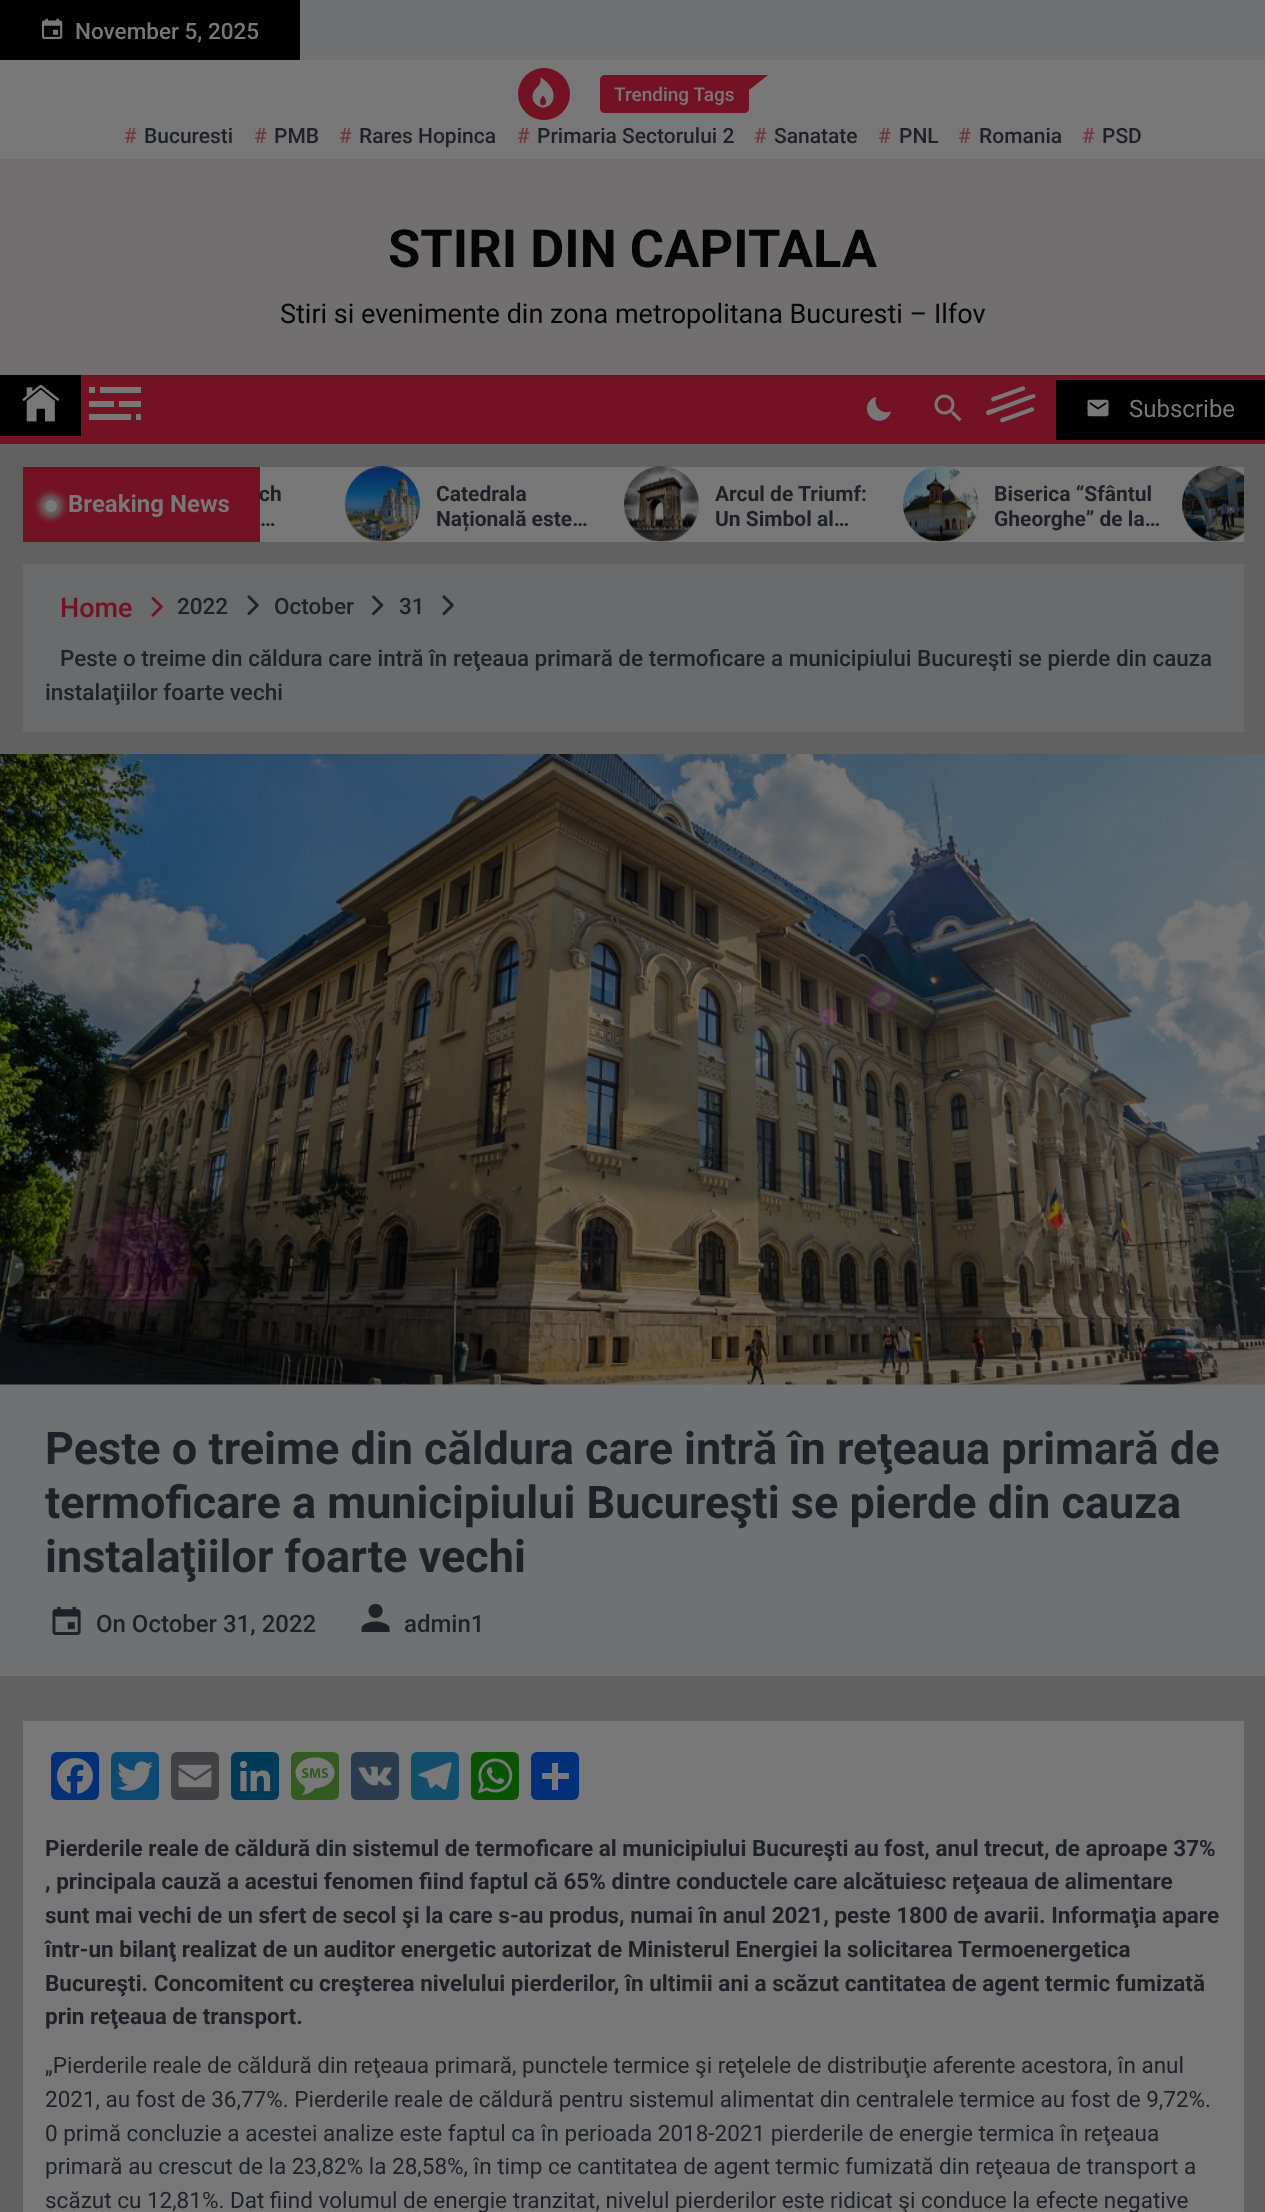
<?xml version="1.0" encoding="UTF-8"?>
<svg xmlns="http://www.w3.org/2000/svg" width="1265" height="2212">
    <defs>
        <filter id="blur1" x="-50%" y="-200%" width="200%" height="500%"><feGaussianBlur stdDeviation="3"/></filter>
        <clipPath id="clip1"><rect x="260" y="467" width="984" height="75"/></clipPath>
    </defs>
    <rect width="100%" height="100%" fill="#616161"/>
    <rect x="300" y="0" width="965" height="60" fill="#6F7172"/>
    <rect x="0" y="0" width="300" height="60" fill="#010101"/>
    <image x="42" y="18" width="21" height="21" href="img_01.png"/>
    <text x="75" y="39" font-family="Roboto" font-size="22.5" font-weight="500" fill="#787878">November 5, 2025</text>
    <rect x="0" y="60" width="1265" height="99" fill="#787878"/>
    <circle cx="544" cy="94" r="26" fill="#731222"/>
    <image x="532" y="77" width="22" height="31" href="img_02.png"/>
    <path d="M 605 75 H 749 V 108 C 749 111 747 113 744 113 H 605 C 602 113 600 111 600 108 V 80 C 600 77 602 75 605 75 Z" fill="#731222"/>
    <path d="M 747 75 H 768 L 747 91.5 Z" fill="#731222"/>
    <text x="614" y="101" font-family="Roboto" font-size="19" font-weight="500" fill="#787878">Trending Tags</text>
    <text x="124" y="143" font-family="Roboto" font-size="21" font-weight="500" fill="#753842">#</text>
    <text x="144" y="143" font-family="Roboto" font-size="21" font-weight="500" fill="#1F2128">Bucuresti</text>
    <text x="254" y="143" font-family="Roboto" font-size="21" font-weight="500" fill="#753842">#</text>
    <text x="274" y="143" font-family="Roboto" font-size="21" font-weight="500" fill="#1F2128">PMB</text>
    <text x="339" y="143" font-family="Roboto" font-size="21" font-weight="500" fill="#753842">#</text>
    <text x="359" y="143" font-family="Roboto" font-size="21" font-weight="500" fill="#1F2128">Rares Hopinca</text>
    <text x="517" y="143" font-family="Roboto" font-size="21" font-weight="500" fill="#753842">#</text>
    <text x="537" y="143" font-family="Roboto" font-size="21" font-weight="500" fill="#1F2128">Primaria Sectorului 2</text>
    <text x="754" y="143" font-family="Roboto" font-size="21" font-weight="500" fill="#753842">#</text>
    <text x="774" y="143" font-family="Roboto" font-size="21" font-weight="500" fill="#1F2128">Sanatate</text>
    <text x="878" y="143" font-family="Roboto" font-size="21" font-weight="500" fill="#753842">#</text>
    <text x="899" y="143" font-family="Roboto" font-size="21" font-weight="500" fill="#1F2128">PNL</text>
    <text x="958" y="143" font-family="Roboto" font-size="21" font-weight="500" fill="#753842">#</text>
    <text x="979" y="143" font-family="Roboto" font-size="21" font-weight="500" fill="#1F2128">Romania</text>
    <text x="1082" y="143" font-family="Roboto" font-size="21" font-weight="500" fill="#753842">#</text>
    <text x="1102" y="143" font-family="Roboto" font-size="21" font-weight="500" fill="#1F2128">PSD</text>
    <rect x="0" y="159" width="1265" height="216" fill="#716F6F"/>
    <text x="388" y="267" font-family="Roboto" font-size="52.5" font-weight="700" fill="#050505">STIRI DIN CAPITALA</text>
    <text x="280" y="323" font-family="Roboto" font-size="27" fill="#050505">Stiri si evenimente din zona metropolitana Bucuresti – Ilfov</text>
    <rect x="0" y="375" width="1265" height="69" fill="#731222"/>
    <rect x="0" y="375" width="81" height="61" fill="#010101"/>
    <image x="22" y="384" width="37" height="38" href="img_03.png"/>
    <rect x="89" y="387" width="52" height="6" fill="#787878"/>
    <rect x="95" y="387" width="5" height="6" fill="#731222"/>
    <rect x="89" y="401" width="52" height="6" fill="#787878"/>
    <rect x="114" y="401" width="5" height="6" fill="#731222"/>
    <rect x="89" y="414" width="52" height="6" fill="#787878"/>
    <rect x="131" y="414" width="5" height="6" fill="#731222"/>
    <image x="867" y="396" width="24" height="25" href="img_04.png"/>
    <image x="934" y="394" width="28" height="28" href="img_05.png"/>
    <path d="M 934.5 379.5 H 958.5 L 946.5 394.5 Z" fill="#731222"/>
    <path d="M 1023.5 390.5 L 993 401.5 C 991.5 401.5 990.5 399.5 991.5 398 C 992.5 396.5 997.5 395.5 997.5 395.5 L 1022 386.5 C 1025 385.5 1026.5 389.5 1023.5 390.5 Z" fill="#787878"/>
    <path d="M 1034 398 L 989 415 C 986 416 985 411 988 410 L 995 408 C 1000 406 1032 394 1034 394 C 1036 395 1036 398 1034 398 Z" fill="#787878"/>
    <path d="M 1032.5 411.5 L 1002 422.5 C 1000.5 422.5 999.5 420.5 1000.5 419 C 1001.5 417.5 1006.5 416.5 1006.5 416.5 L 1031 407.5 C 1034 406.5 1035.5 410.5 1032.5 411.5 Z" fill="#787878"/>
    <rect x="1056" y="380" width="209" height="60" fill="#010101"/>
    <image x="1087" y="399" width="22" height="18" href="img_06.png"/>
    <text x="1129" y="417" font-family="Roboto" font-size="24" fill="#787878">Subscribe</text>
    <rect x="260" y="467" width="984" height="75" fill="#787878"/>
    <rect x="23" y="467" width="237" height="75" fill="#731222"/>
    <rect x="39" y="494" width="24" height="24" rx="12" fill="#666363" filter="url(#blur1)"/>
    <text x="68" y="512" font-family="Roboto" font-size="24" font-weight="700" fill="#787878">Breaking News</text>
    <circle cx="51" cy="506" r="6" fill="#787878"/>
    <text x="259" y="501" font-family="Roboto" font-size="21" font-weight="700" fill="#1F2128">ch</text>
    <text x="260" y="526" font-family="Roboto" font-size="21" font-weight="700" fill="#1F2128">…</text>
    <circle cx="382.5" cy="504.5" r="37.5" fill="#666363"/>
    <image x="345" y="466" width="75" height="75" href="img_07.png"/>
    <text font-family="Roboto" font-size="21" font-weight="700" fill="#1F2128">
        <tspan x="436" y="501">Catedrala</tspan>
        <tspan x="436" y="526">Națională este…</tspan>
    </text>
    <circle cx="661.5" cy="504.5" r="37.5" fill="#666363"/>
    <image x="624" y="466" width="75" height="75" href="img_08.png"/>
    <text font-family="Roboto" font-size="21" font-weight="700" fill="#1F2128">
        <tspan x="715" y="501">Arcul de Triumf:</tspan>
        <tspan x="715" y="526">Un Simbol al…</tspan>
    </text>
    <circle cx="940.5" cy="504.5" r="37.5" fill="#666363"/>
    <image x="903" y="466" width="75" height="75" href="img_09.png"/>
    <text font-family="Roboto" font-size="21" font-weight="700" fill="#1F2128">
        <tspan x="994" y="501">Biserica “Sfântul</tspan>
        <tspan x="994" y="526">Gheorghe” de la…</tspan>
    </text>
    <g clip-path="url(#clip1)">
        <circle cx="1219.5" cy="504.5" r="37.5" fill="#666363"/>
    </g>
    <image x="1182" y="466" width="62" height="75" href="img_10.png"/>
    <rect x="23" y="564" width="1221" height="168" fill="#6A6B6C"/>
    <text x="60" y="617" font-family="Roboto" font-size="27" font-weight="500" fill="#731222">Home</text>
    <image x="151" y="596" width="12" height="21" href="img_11.png"/>
    <text x="177" y="614" font-family="Roboto" font-size="22.5" font-weight="500" fill="#1F2128">2022</text>
    <image x="247" y="595" width="12" height="21" href="img_12.png"/>
    <text x="274" y="614" font-family="Roboto" font-size="22.5" font-weight="500" fill="#1F2128">October</text>
    <image x="372" y="595" width="12" height="21" href="img_13.png"/>
    <text x="399" y="614" font-family="Roboto" font-size="22.5" font-weight="500" fill="#1F2128">31</text>
    <image x="442" y="595" width="12" height="21" href="img_12.png"/>
    <text x="60" y="666" font-family="Roboto" font-size="22.5" font-weight="500" fill="#1F2128">Peste o treime din căldura care intră în reţeaua primară de termoficare a municipiului Bucureşti se pierde din cauza</text>
    <text x="45" y="700" font-family="Roboto" font-size="22.5" font-weight="500" fill="#1F2128">instalaţiilor foarte vechi</text>
    <rect x="0" y="1384" width="1265" height="1" fill="#716F6F"/>
    <image x="0" y="754" width="1265" height="631" href="img_14.png"/>
    <rect x="0" y="1385" width="1265" height="291" fill="#6F7172"/>
    <text font-family="Roboto" font-size="45" font-weight="700" fill="#1F2128">
        <tspan x="45" y="1464">Peste o treime din căldura care intră în reţeaua primară de</tspan>
        <tspan x="45" y="1518">termoficare a municipiului Bucureşti se pierde din cauza</tspan>
        <tspan x="45" y="1572">instalaţiilor foarte vechi</tspan>
    </text>
    <image x="52" y="1606" width="29" height="29" href="img_15.png"/>
    <text x="96" y="1632" font-family="Roboto" font-size="24" font-weight="500" fill="#1F2128">On October 31, 2022</text>
    <image x="361" y="1603" width="29" height="29" href="img_16.png"/>
    <text x="404" y="1632" font-family="Roboto" font-size="24" font-weight="500" fill="#1F2128">admin1</text>
    <rect x="23" y="1721" width="1221" height="491" fill="#787878"/>
    <rect x="51" y="1752" width="48" height="48" rx="6" fill="#043078"/>
    <image x="57" y="1758" width="36" height="36" href="img_17.png"/>
    <rect x="111" y="1752" width="48" height="48" rx="6" fill="#0E4971"/>
    <image x="117" y="1761" width="36" height="30" href="img_18.png"/>
    <rect x="171" y="1752" width="48" height="48" rx="6" fill="#404144"/>
    <image x="178" y="1764" width="34" height="24" href="img_19.png"/>
    <rect x="231" y="1752" width="48" height="48" rx="6" fill="#013A56"/>
    <image x="239" y="1760" width="32" height="32" href="img_20.png"/>
    <rect x="291" y="1752" width="48" height="48" rx="6" fill="#335A21"/>
    <image x="295" y="1757" width="40" height="38" href="img_21.png"/>
    <rect x="351" y="1752" width="48" height="48" rx="6" fill="#2A3C4D"/>
    <image x="358" y="1766" width="34" height="20" href="img_22.png"/>
    <rect x="411" y="1752" width="48" height="48" rx="6" fill="#154E6A"/>
    <image x="418" y="1762" width="34" height="28" href="img_23.png"/>
    <rect x="471" y="1752" width="48" height="48" rx="6" fill="#095305"/>
    <image x="477" y="1758" width="36" height="36" href="img_24.png"/>
    <rect x="531" y="1752" width="48" height="48" rx="6" fill="#013078"/>
    <rect x="552" y="1763" width="6" height="27" fill="#787878"/>
    <rect x="542" y="1773" width="27" height="6" fill="#787878"/>
    <text font-family="Roboto" font-size="22.5" font-weight="700" fill="#1F2128">
        <tspan x="45" y="1856">Pierderile reale de căldură din sistemul de termoficare al municipiului Bucureşti au fost, anul trecut, de aproape 37%</tspan>
        <tspan x="45" y="1889">, principala cauză a acestui fenomen fiind faptul că 65% dintre conductele care alcătuiesc reţeaua de alimentare</tspan>
        <tspan x="45" y="1923">sunt mai vechi de un sfert de secol şi la care s-au produs, numai în anul 2021, peste 1800 de avarii. Informaţia apare</tspan>
        <tspan x="45" y="1957">într-un bilanţ realizat de un auditor energetic autorizat de Ministerul Energiei la solicitarea Termoenergetica</tspan>
        <tspan x="45" y="1991">Bucureşti. Concomitent cu creşterea nivelului pierderilor, în ultimii ani a scăzut cantitatea de agent termic fumizată</tspan>
        <tspan x="45" y="2024">prin reţeaua de transport.</tspan>
    </text>
    <text font-family="Roboto" font-size="22.5" fill="#1F2128">
        <tspan x="45" y="2073">„Pierderile reale de căldură din reţeaua primară, punctele termice şi reţelele de distribuţie aferente acestora, în anul</tspan>
        <tspan x="45" y="2107">2021, au fost de 36,77%. Pierderile reale de căldură pentru sistemul alimentat din centralele termice au fost de 9,72%.</tspan>
        <tspan x="45" y="2141">0 primă concluzie a acestei analize este faptul ca în perioada 2018-2021 pierderile de energie termica în reţeaua</tspan>
        <tspan x="45" y="2174">primară au crescut de la 23,82% la 28,58%, în timp ce cantitatea de agent termic fumizată din reţeaua de transport a</tspan>
        <tspan x="45" y="2208">scăzut cu 12,81%. Dat fiind volumul de energie tranzitat, nivelul pierderilor este ridicat şi conduce la efecte negative</tspan>
    </text>
</svg>
